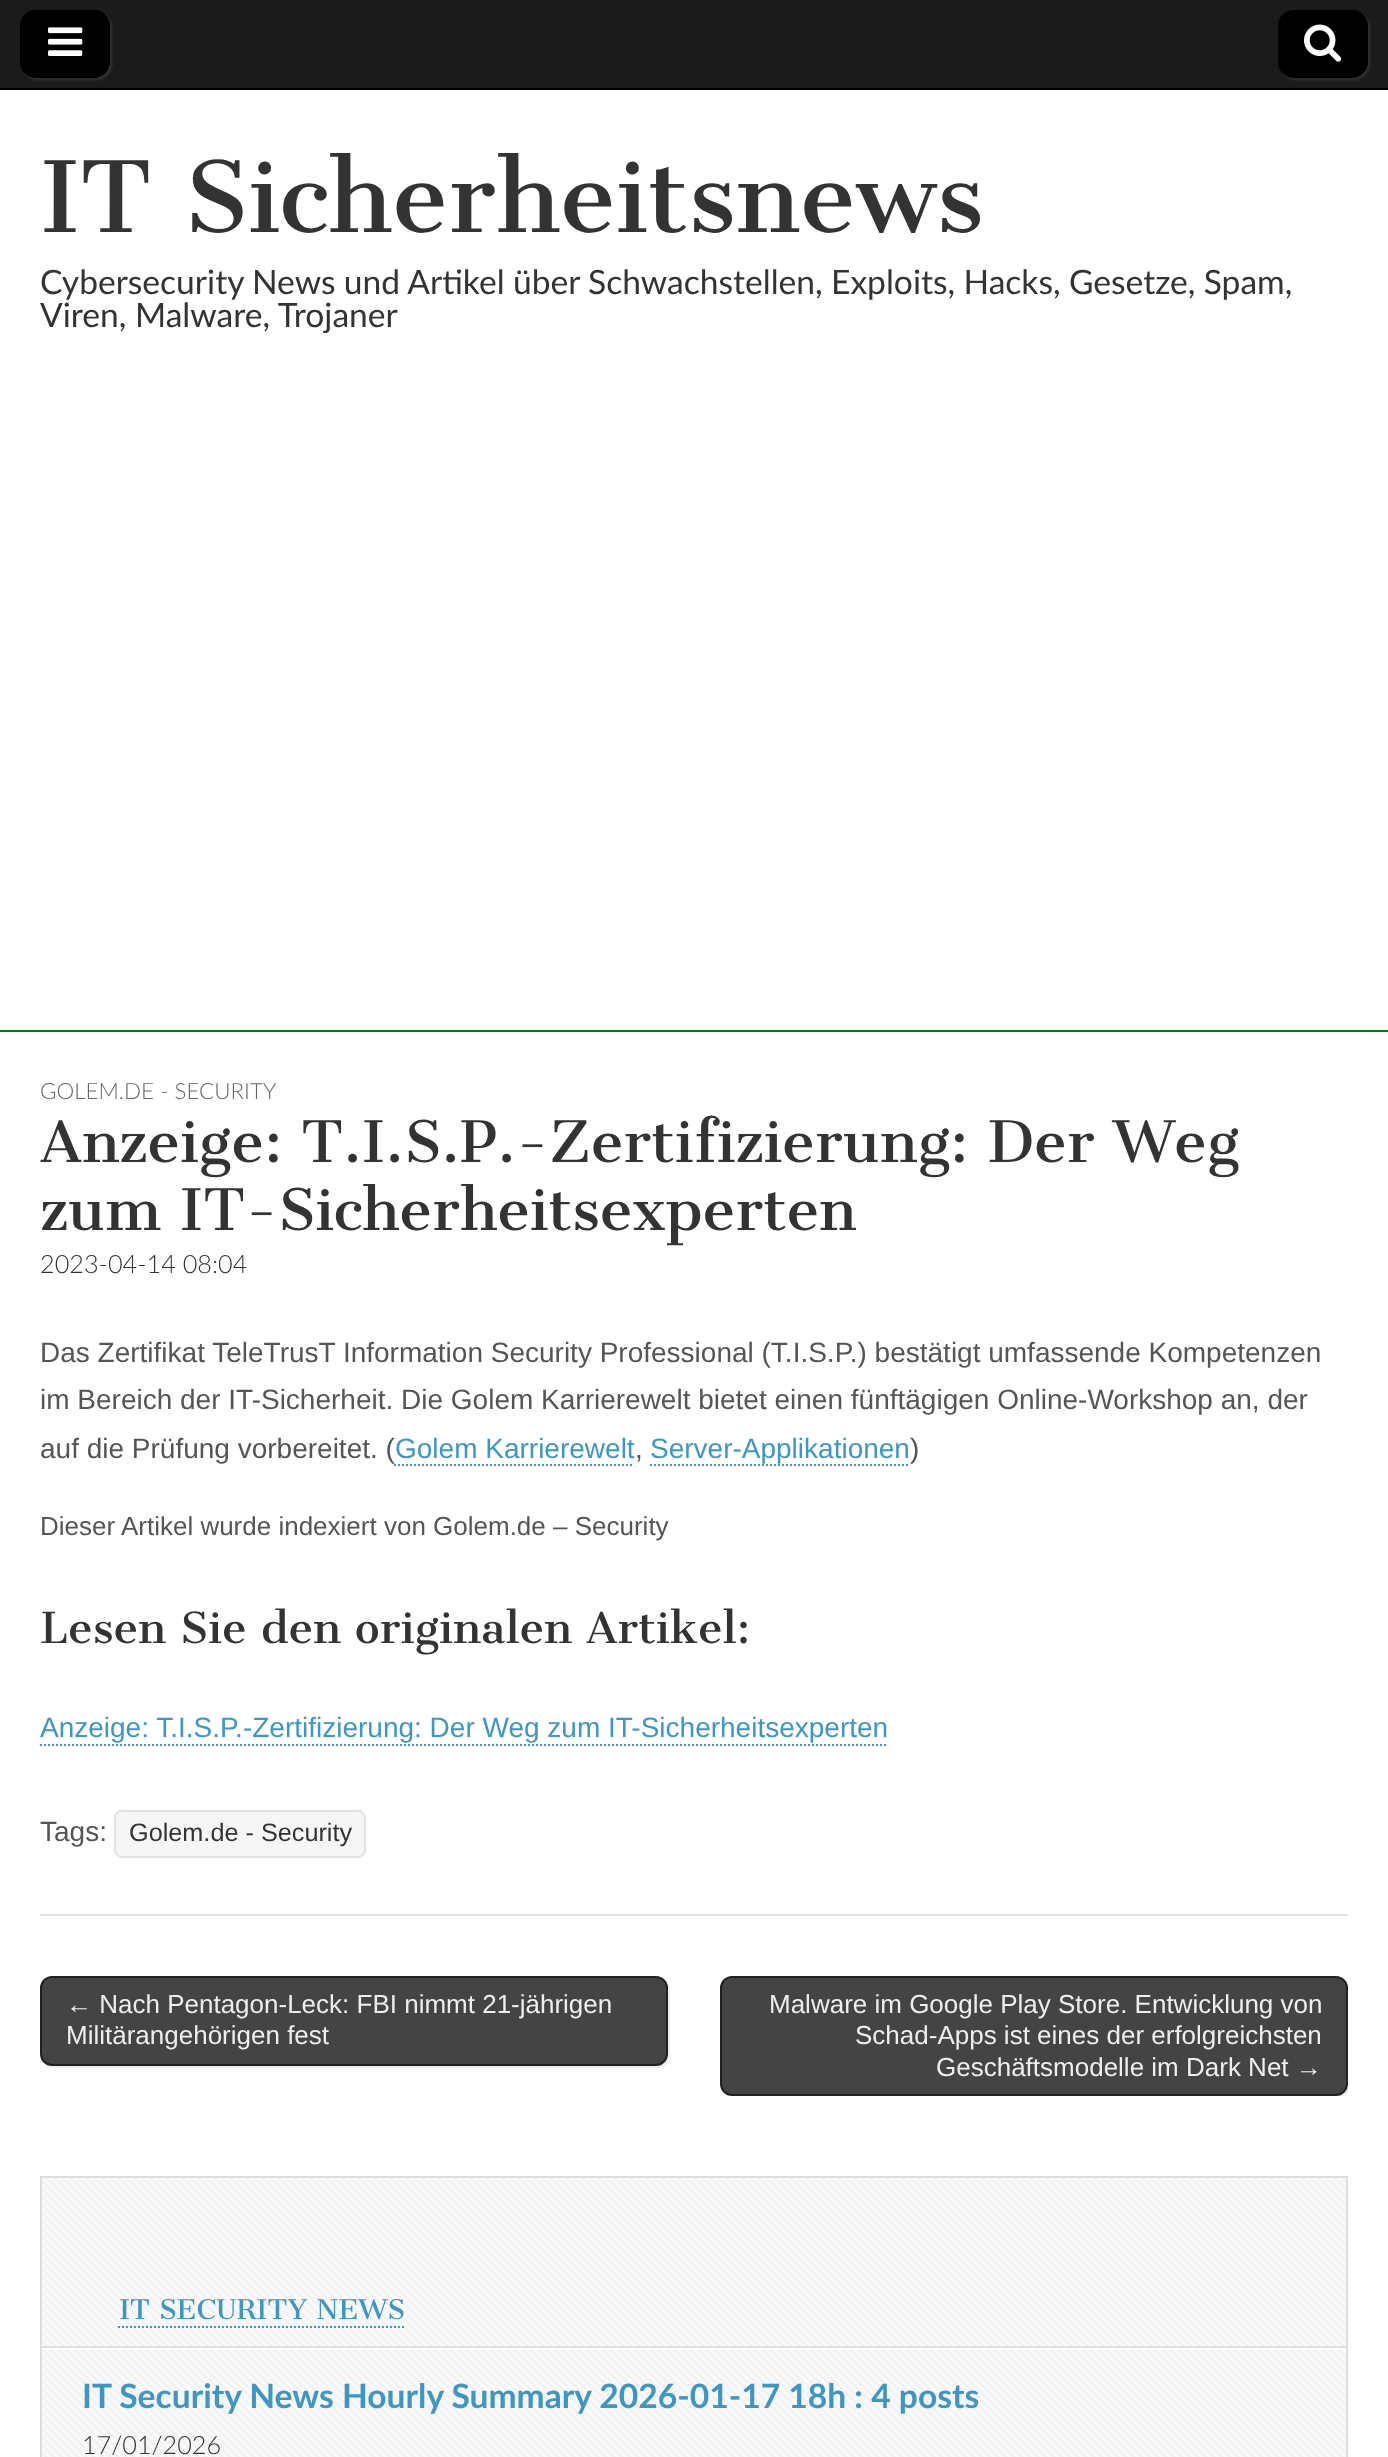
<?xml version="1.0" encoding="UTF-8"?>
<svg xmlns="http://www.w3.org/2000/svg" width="1388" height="2457">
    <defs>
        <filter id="blur1" x="-50%" y="-200%" width="200%" height="500%"><feGaussianBlur stdDeviation="1"/></filter>
        <clipPath id="clip1"><rect x="40" y="1976" width="1308" height="120"/></clipPath>
    </defs>
    <rect width="100%" height="100%" fill="#FFFFFF"/>
    <rect x="0" y="0" width="1388" height="88" fill="#1B1B1B"/>
    <rect x="0" y="88" width="1388" height="2" fill="#000000"/>
    <rect x="22" y="12" width="90" height="68" rx="16" fill="#333333" filter="url(#blur1)"/>
    <rect x="20" y="10" width="90" height="68" rx="16" fill="#000000"/>
    <path d="M 38 12 H 96 C 100 12 103 13 106 15 C 103 12 99 10 94 10 H 36 C 27 10 20 17 20 26 V 62 C 20 67 22 71 25 74 C 23 71 22 68 22 64 V 28 C 22 19 29 12 38 12 Z" fill="#000000"/>
    <image x="48" y="27" width="35" height="29" href="img_01.png"/>
    <rect x="1280" y="12" width="90" height="68" rx="16" fill="#333333" filter="url(#blur1)"/>
    <rect x="1278" y="10" width="90" height="68" rx="16" fill="#000000"/>
    <path d="M 1296 12 H 1354 C 1358 12 1361 13 1364 15 C 1361 12 1357 10 1352 10 H 1294 C 1285 10 1278 17 1278 26 V 62 C 1278 67 1280 71 1283 74 C 1281 71 1280 68 1280 64 V 28 C 1280 19 1287 12 1296 12 Z" fill="#000000"/>
    <image x="1304" y="24" width="38" height="38" href="img_02.png"/>
    <text x="40" y="232" font-family="Cantata One" font-size="96" fill="#333333">IT Sicherheitsnews</text>
    <text font-family="Lato" font-size="33.6" fill="#333333">
        <tspan x="40" y="294" word-spacing="-0.25">Cybersecurity News und Artikel über Schwachstellen, Exploits, Hacks, Gesetze, Spam,</tspan>
        <tspan x="40" y="327">Viren, Malware, Trojaner</tspan>
    </text>
    <rect x="0" y="1030" width="1388" height="2" fill="#008000"/>
    <rect x="40" y="1914" width="1308" height="2" fill="#E2E2E2"/>
    <text x="40" y="1099" font-family="Lato" font-size="22.4" font-weight="300" fill="#666666">GOLEM.DE - SECURITY</text>
    <text font-family="Cantata One" font-size="56" fill="#333333">
        <tspan x="40" y="1162">Anzeige: T.I.S.P.-Zertifizierung: Der Weg</tspan>
        <tspan x="40" y="1230">zum IT-Sicherheitsexperten</tspan>
    </text>
    <text x="40" y="1273" font-family="Lato" font-size="25.25" font-weight="300" fill="#333333">2023-04-14 08:04</text>
    <text font-family="Liberation Sans" font-size="28" fill="#555555">
        <tspan x="40" y="1362">Das Zertifikat TeleTrusT Information Security Professional (T.I.S.P.) bestätigt umfassende Kompetenzen</tspan>
        <tspan x="40" y="1409">im Bereich der IT-Sicherheit. Die Golem Karrierewelt bietet einen fünftägigen Online-Workshop an, der</tspan>
        <tspan x="40" y="1458">auf die Prüfung vorbereitet. (</tspan>
    </text>
    <text x="395" y="1458" font-family="Liberation Sans" font-size="28" fill="#3D97C2">Golem Karrierewelt</text>
    <path d="M 394 1465 H 634" fill="none" stroke="#3D97C2" stroke-width="2" stroke-dasharray="2 2"/>
    <text x="635" y="1458" font-family="Liberation Sans" font-size="28" fill="#555555">,</text>
    <text x="650" y="1458" font-family="Liberation Sans" font-size="28" fill="#3D97C2">Server-Applikationen</text>
    <path d="M 650 1465 H 910" fill="none" stroke="#3D97C2" stroke-width="2" stroke-dasharray="2 2"/>
    <text x="910" y="1458" font-family="Liberation Sans" font-size="28" fill="#555555">)</text>
    <text x="40" y="1535" font-family="Liberation Sans" font-size="26" fill="#555555">Dieser Artikel wurde indexiert von Golem.de – Security</text>
    <text x="40" y="1643" font-family="Cantata One" font-size="42" fill="#333333">Lesen Sie den originalen Artikel:</text>
    <text x="40" y="1737" font-family="Liberation Sans" font-size="28" fill="#3D97C2">Anzeige: T.I.S.P.-Zertifizierung: Der Weg zum IT-Sicherheitsexperten</text>
    <path d="M 40 1745 H 888" fill="none" stroke="#3D97C2" stroke-width="2" stroke-dasharray="2 2"/>
    <text x="40" y="1841" font-family="Liberation Sans" font-size="28" fill="#555555">Tags:</text>
    <rect x="115" y="1811" width="250" height="46" rx="7" fill="#F6F6F6" stroke="#E2E2E2" stroke-width="2"/>
    <text x="129" y="1841" font-family="Liberation Sans" font-size="25.25" fill="#333333">Golem.de - Security</text>
    <path d="M 45 2063 C 47 2066 50 2068 54 2068 H 658 C 665 2068 670 2063 670 2056 V 1990 C 670 1986 668 1983 665 1981 C 667 1983 668 1985 668 1988 V 2054 C 668 2061 663 2066 656 2066 H 52 C 49 2066 47 2065 45 2063 Z" fill="#EEEEEE"/>
    <rect x="41" y="1977" width="626" height="88" rx="11" fill="#444444" stroke="#222222" stroke-width="2"/>
    <text font-family="Liberation Sans" font-size="26" fill="#EEEEEE">
        <tspan x="66" y="2013">← Nach Pentagon-Leck: FBI nimmt 21-jährigen</tspan>
        <tspan x="66" y="2044">Militärangehörigen fest</tspan>
    </text>
    <g clip-path="url(#clip1)">
        <path d="M 725 2093 C 727 2096 730 2098 734 2098 H 1338 C 1345 2098 1350 2093 1350 2086 V 1990 C 1350 1986 1348 1983 1345 1981 C 1347 1983 1348 1985 1348 1988 V 2084 C 1348 2091 1343 2096 1336 2096 H 732 C 729 2096 727 2095 725 2093 Z" fill="#EEEEEE"/>
    </g>
    <rect x="721" y="1977" width="626" height="118" rx="11" fill="#444444" stroke="#222222" stroke-width="2"/>
    <text x="769" y="2013" font-family="Liberation Sans" font-size="26" fill="#EEEEEE">Malware im Google Play Store. Entwicklung von</text>
    <text x="855" y="2044" font-family="Liberation Sans" font-size="26" fill="#EEEEEE">Schad-Apps ist eines der erfolgreichsten</text>
    <text x="936" y="2076" font-family="Liberation Sans" font-size="26" fill="#EEEEEE">Geschäftsmodelle im Dark Net →</text>
    <image x="42" y="2178" width="1304" height="279" href="img_03.png"/>
    <rect x="41" y="2177" width="1306" height="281" fill="none" stroke="#DDDDDD" stroke-width="2"/>
    <rect x="42" y="2348" width="1304" height="2" fill="#FFFFFF"/>
    <rect x="42" y="2346" width="1304" height="2" fill="#DDDDDD"/>
    <text x="119" y="2319" font-family="Cantata One" font-size="26.6" fill="#3D97C2">IT SECURITY NEWS</text>
    <path d="M 118 2327 H 404" fill="none" stroke="#3D97C2" stroke-width="2" stroke-dasharray="2 2"/>
    <text x="82" y="2408" font-family="Lato" font-size="33.6" font-weight="700" fill="#3D97C2">IT Security News Hourly Summary 2026-01-17 18h : 4 posts</text>
    <text x="82" y="2454" font-family="Lato" font-size="25.25" font-weight="300" fill="#333333">17/01/2026</text>
</svg>
